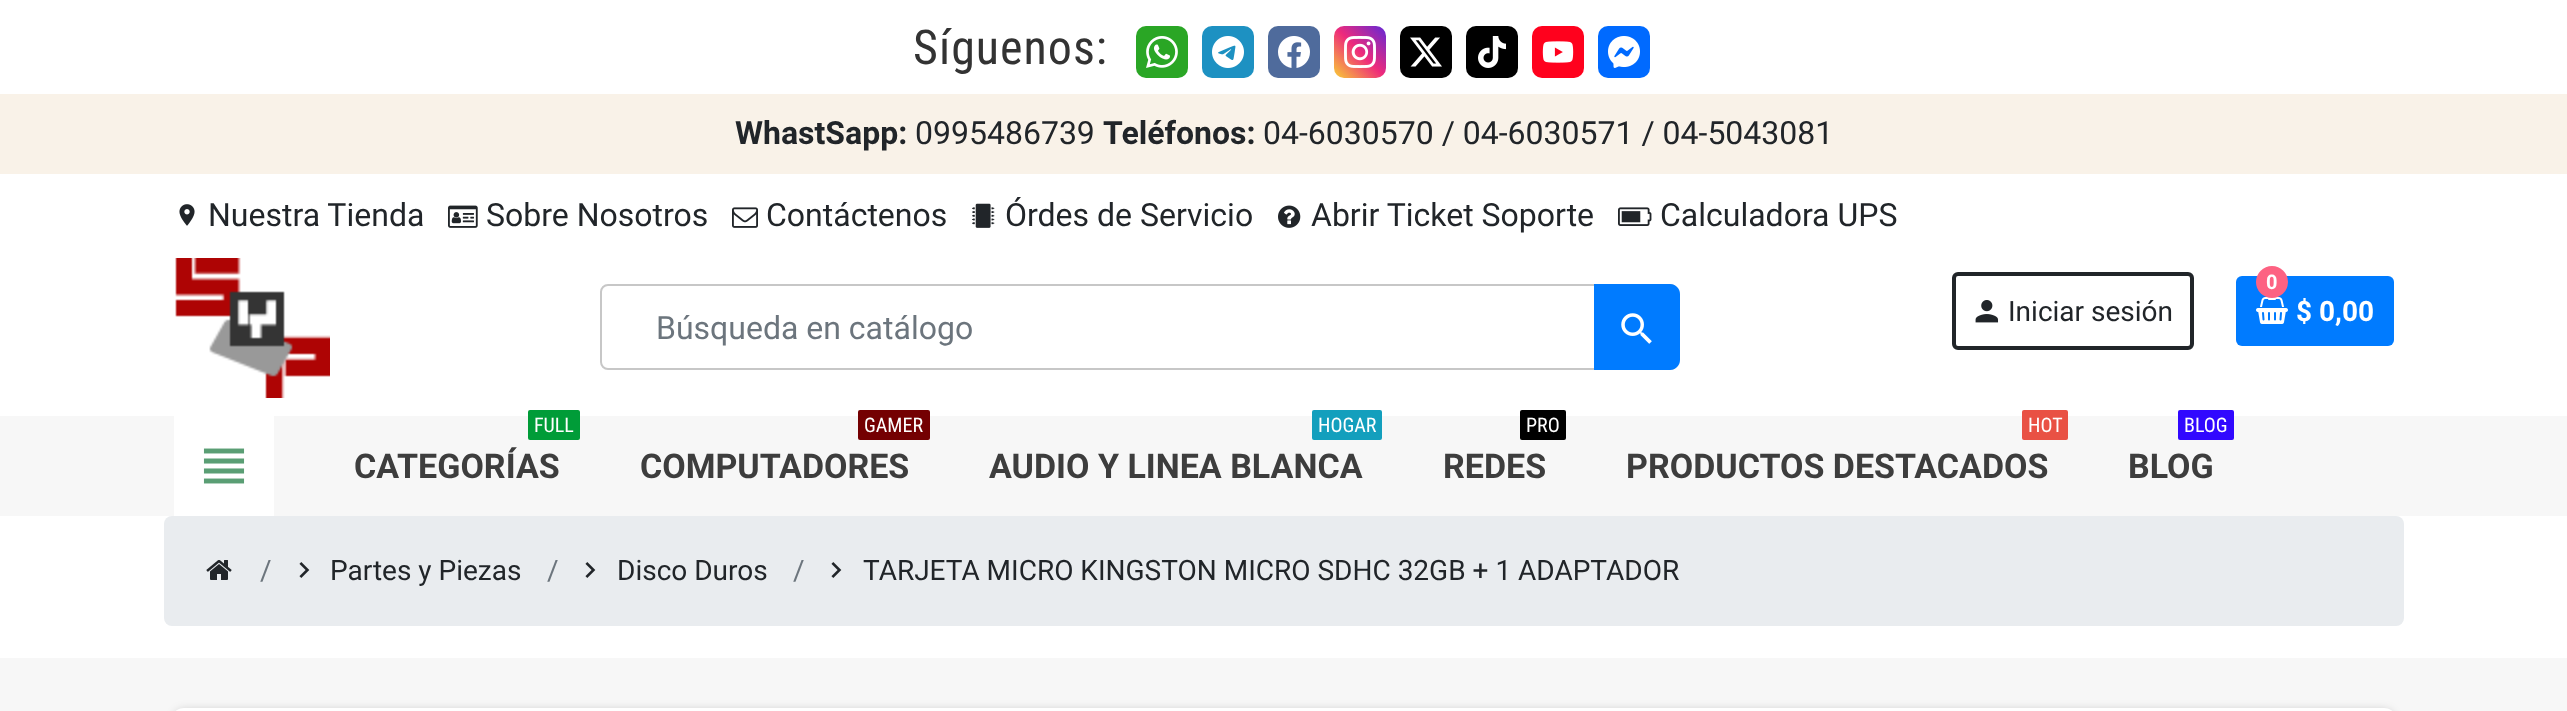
<?xml version="1.0" encoding="UTF-8"?>
<svg xmlns="http://www.w3.org/2000/svg" width="2567" height="711">
    <defs>
        <linearGradient id="g1" gradientUnits="userSpaceOnUse" x1="1334" y1="78" x2="1386" y2="26"><stop offset="0" stop-color="#F9CE34"/><stop offset="0.5" stop-color="#EE2A7B"/><stop offset="1" stop-color="#6228D7"/></linearGradient>
        <filter id="blur1" x="-50%" y="-200%" width="200%" height="500%"><feGaussianBlur stdDeviation="5"/></filter>
    </defs>
    <rect width="100%" height="100%" fill="#FFFFFF"/>
    <text x="913" y="64" font-family="Roboto Condensed" font-size="48" letter-spacing="1" fill="#333333">Síguenos:</text>
    <rect x="1136" y="26" width="52" height="52" rx="10" fill="#2AA625"/>
    <image x="1146" y="36" width="32" height="32" href="img_01.png"/>
    <rect x="1202" y="26" width="52" height="52" rx="10" fill="#1D91C2"/>
    <image x="1212" y="36" width="32" height="32" href="img_02.png"/>
    <rect x="1268" y="26" width="52" height="52" rx="10" fill="#4F6B9C"/>
    <image x="1278" y="36" width="32" height="32" href="img_03.png"/>
    <rect x="1334" y="26" width="52" height="52" rx="10" fill="url(#g1)"/>
    <image x="1344" y="36" width="32" height="32" href="img_04.png"/>
    <rect x="1400" y="26" width="52" height="52" rx="10" fill="#000000"/>
    <image x="1410" y="37" width="32" height="30" href="img_05.png"/>
    <rect x="1466" y="26" width="52" height="52" rx="10" fill="#000000"/>
    <image x="1478" y="36" width="28" height="32" href="img_06.png"/>
    <rect x="1532" y="26" width="52" height="52" rx="10" fill="#FF011D"/>
    <image x="1542" y="41" width="32" height="22" href="img_07.png"/>
    <rect x="1598" y="26" width="52" height="52" rx="10" fill="#006AFF"/>
    <image x="1608" y="36" width="32" height="32" href="img_08.png"/>
    <rect x="0" y="94" width="2567" height="80" fill="#F9F2E8"/>
    <text x="735" y="144" font-family="Roboto" font-size="32" font-weight="700" fill="#212529">WhastSapp:</text>
    <text x="915" y="144" font-family="Roboto" font-size="32" fill="#212529">0995486739</text>
    <text x="1103" y="144" font-family="Roboto" font-size="32" font-weight="700" fill="#212529">Teléfonos:</text>
    <text x="1263" y="144" font-family="Roboto" font-size="32" fill="#212529">04-6030570 / 04-6030571 / 04-5043081</text>
    <image x="179" y="204" width="16" height="22" href="img_09.png"/>
    <text x="208" y="226" font-family="Roboto" font-size="32" fill="#212529">Nuestra Tienda</text>
    <image x="448" y="205" width="30" height="23" href="img_10.png"/>
    <text x="486" y="226" font-family="Roboto" font-size="32" fill="#212529">Sobre Nosotros</text>
    <image x="732" y="207" width="26" height="21" href="img_11.png"/>
    <text x="766" y="226" font-family="Roboto" font-size="32" fill="#212529">Contáctenos</text>
    <image x="972" y="203" width="23" height="25" href="img_12.png"/>
    <text x="1005" y="226" font-family="Roboto" font-size="32" fill="#212529">Órdes de Servicio</text>
    <image x="1278" y="205" width="23" height="23" href="img_13.png"/>
    <text x="1311" y="226" font-family="Roboto" font-size="32" fill="#212529">Abrir Ticket Soporte</text>
    <image x="1618" y="207" width="34" height="19" href="img_14.png"/>
    <text x="1660" y="226" font-family="Roboto" font-size="32" fill="#212529">Calculadora UPS</text>
    <image x="175" y="258" width="155" height="140" href="img_15.png"/>
    <rect x="1954" y="274" width="238" height="74" rx="4" fill="none" stroke="#212529" stroke-width="4"/>
    <image x="1975" y="300" width="24" height="23" href="img_16.png"/>
    <text x="2008" y="321" font-family="Roboto" font-size="28" fill="#212529">Iniciar sesión</text>
    <rect x="2236" y="276" width="158" height="70" rx="6" fill="#007BFF"/>
    <image x="2256" y="297" width="32" height="27" href="img_17.png"/>
    <circle cx="2272" cy="282" r="16" fill="#FD6282"/>
    <text x="2266" y="289" font-family="Roboto" font-size="20" font-weight="700" fill="#FFFFFF">0</text>
    <text x="2296" y="321" font-family="Roboto" font-size="28" font-weight="700" fill="#FFFFFF">$ 0,00</text>
    <rect x="601" y="285" width="1076" height="84" rx="7" fill="none" stroke="#C7C7C7" stroke-width="2"/>
    <text x="656" y="339" font-family="Roboto" font-size="32" fill="#6C757D">Búsqueda en catálogo</text>
    <path d="M 1594 284 H 1670 C 1675.5 284 1680 288.5 1680 294 V 360 C 1680 365.5 1675.5 370 1670 370 H 1594 Z" fill="#007BFF"/>
    <image x="1621" y="313" width="31" height="31" href="img_18.png"/>
    <rect x="0" y="416" width="2567" height="100" fill="#F7F7F7"/>
    <rect x="174" y="416" width="100" height="100" fill="#FFFFFF"/>
    <image x="203" y="448" width="42" height="36" href="img_19.png"/>
    <rect x="528" y="410" width="52" height="30" rx="2" fill="#009C38"/>
    <text x="534" y="432" font-family="Roboto Condensed" font-size="20" fill="#FFFFFF">FULL</text>
    <text x="354" y="478" font-family="'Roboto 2'" font-size="34" font-weight="700" fill="#3D3D3D">CATEGORÍAS</text>
    <rect x="858" y="410" width="72" height="30" rx="2" fill="#740002"/>
    <text x="864" y="432" font-family="Roboto Condensed" font-size="20" fill="#FFFFFF">GAMER</text>
    <text x="640" y="478" font-family="'Roboto 2'" font-size="34" font-weight="700" fill="#3D3D3D">COMPUTADORES</text>
    <rect x="1312" y="410" width="70" height="30" rx="2" fill="#139FBD"/>
    <text x="1318" y="432" font-family="Roboto Condensed" font-size="20" fill="#FFFFFF">HOGAR</text>
    <text x="989" y="478" font-family="'Roboto 2'" font-size="34" font-weight="700" fill="#3D3D3D">AUDIO Y LINEA BLANCA</text>
    <rect x="1520" y="410" width="46" height="30" rx="2" fill="#000000"/>
    <text x="1526" y="432" font-family="Roboto Condensed" font-size="20" fill="#FFFFFF">PRO</text>
    <text x="1443" y="478" font-family="'Roboto 2'" font-size="34" font-weight="700" fill="#3D3D3D">REDES</text>
    <rect x="2022" y="410" width="46" height="30" rx="2" fill="#E95144"/>
    <text x="2028" y="432" font-family="Roboto Condensed" font-size="20" fill="#FFFFFF">HOT</text>
    <text x="1626" y="478" font-family="'Roboto 2'" font-size="34" font-weight="700" fill="#3D3D3D">PRODUCTOS DESTACADOS</text>
    <rect x="2178" y="410" width="56" height="30" rx="2" fill="#3108FF"/>
    <text x="2184" y="432" font-family="Roboto Condensed" font-size="20" fill="#FFFFFF">BLOG</text>
    <text x="2128" y="478" font-family="'Roboto 2'" font-size="34" font-weight="700" fill="#3D3D3D">BLOG</text>
    <rect x="0" y="658" width="2567" height="53" fill="#F7F7F7"/>
    <rect x="164" y="516" width="2240" height="110" rx="8" fill="#E9ECEF"/>
    <image x="206" y="560" width="26" height="20" href="img_20.png"/>
    <text x="260" y="580" font-family="Roboto" font-size="28" fill="#6C757D">/</text>
    <image x="299" y="562" width="11" height="16" href="img_21.png"/>
    <text x="330" y="580" font-family="Roboto" font-size="28" fill="#212529">Partes y Piezas</text>
    <text x="547" y="580" font-family="Roboto" font-size="28" fill="#6C757D">/</text>
    <image x="585" y="562" width="11" height="16" href="img_21.png"/>
    <text x="617" y="580" font-family="Roboto" font-size="28" fill="#212529">Disco Duros</text>
    <text x="793" y="580" font-family="Roboto" font-size="28" fill="#6C757D">/</text>
    <image x="831" y="562" width="11" height="16" href="img_21.png"/>
    <text x="863" y="580" font-family="Roboto" font-size="28" fill="#212529">TARJETA MICRO KINGSTON MICRO SDHC 32GB + 1 ADAPTADOR</text>
    <rect x="174" y="710" width="2220" height="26" rx="10" fill="#000000" fill-opacity="0.2" filter="url(#blur1)"/>
    <rect x="174" y="708" width="2220" height="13" rx="10" fill="#FFFFFF"/>
</svg>
